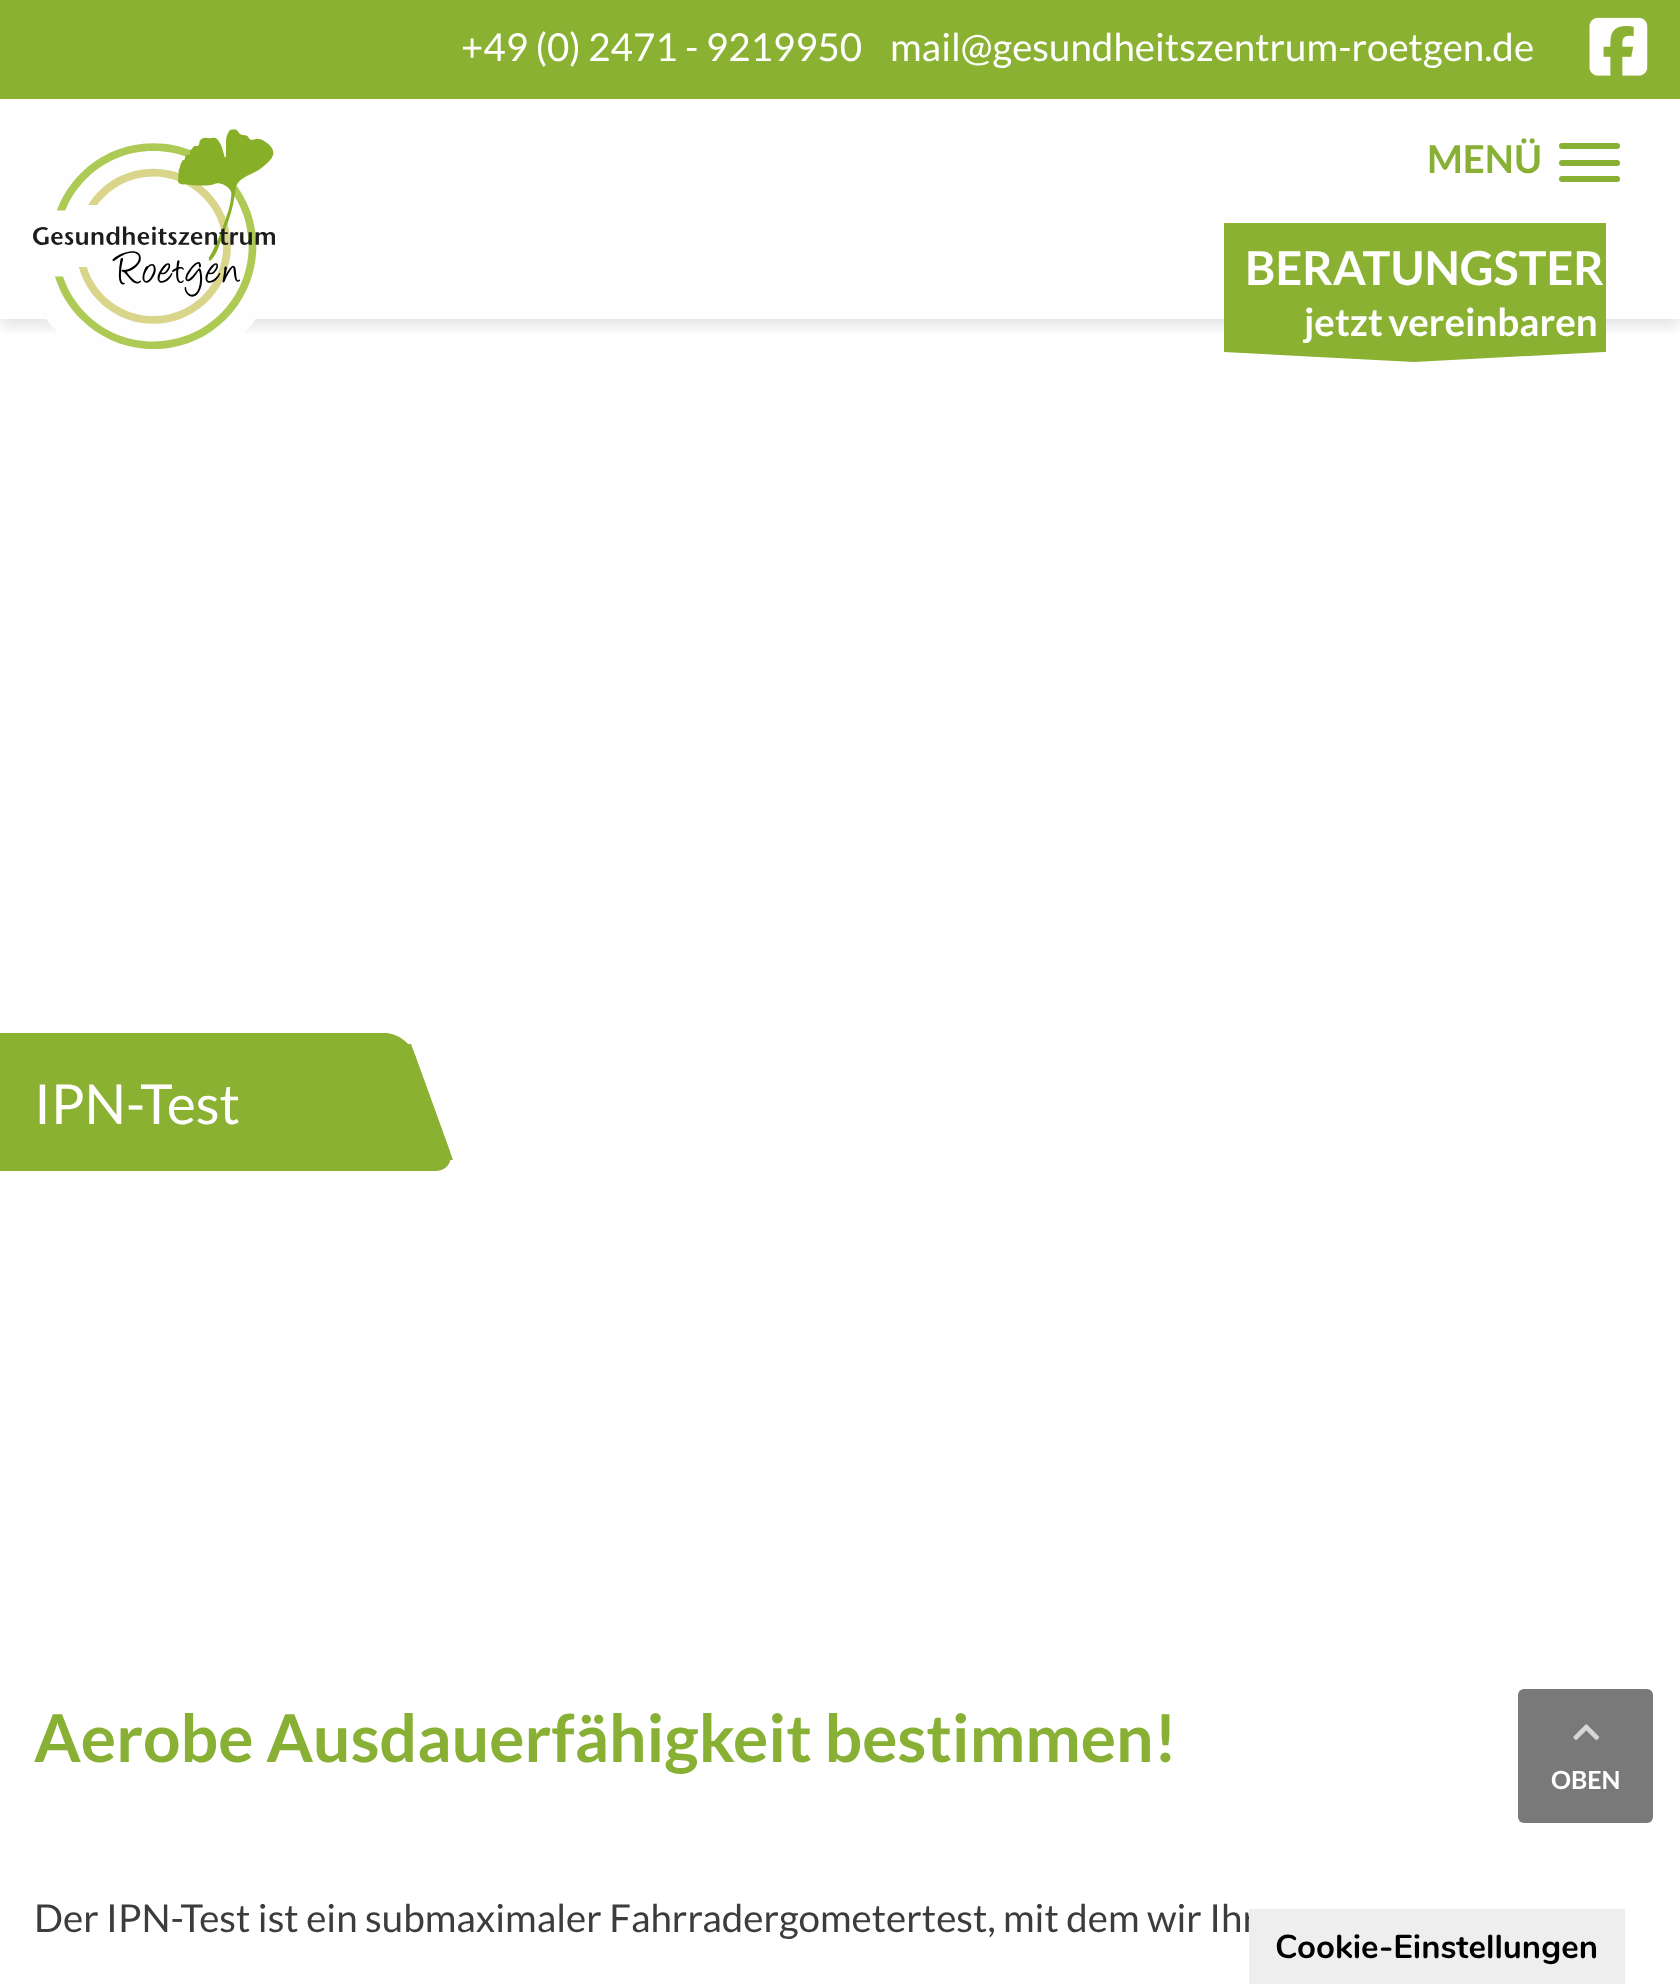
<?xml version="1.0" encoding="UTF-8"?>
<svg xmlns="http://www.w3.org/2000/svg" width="1680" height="1984">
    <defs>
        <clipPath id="clip1"><rect x="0" y="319" width="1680" height="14"/></clipPath>
        <filter id="blur1" x="-50%" y="-200%" width="200%" height="500%"><feGaussianBlur stdDeviation="7"/></filter>
    </defs>
    <rect width="100%" height="100%" fill="#FFFFFF"/>
    <rect x="0" y="0" width="1680" height="99" fill="#8AB131"/>
    <text x="461" y="61" font-family="Lato" font-size="38.5" fill="#FFFFFF">+49 (0) 2471 - 9219950</text>
    <text x="890" y="61" font-family="Lato" font-size="38.5" fill="#FFFFFF">mail@gesundheitszentrum-roetgen.de</text>
    <image x="1589" y="17" width="59" height="59" href="img_01.png"/>
    <g clip-path="url(#clip1)">
        <rect x="0" y="107" width="1680" height="220" fill="#000000" fill-opacity="0.1" filter="url(#blur1)"/>
    </g>
    <circle cx="151" cy="239" r="132" fill="#FEFEFE"/>
    <image x="33" y="129" width="242" height="220" href="img_02.png"/>
    <text x="1427" y="173" font-family="Lato" font-size="38.5" font-weight="700" fill="#88B035">MENÜ</text>
    <rect x="1559" y="143" width="61" height="6" rx="3" fill="#88B035"/>
    <rect x="1559" y="160" width="61" height="6" rx="3" fill="#88B035"/>
    <rect x="1559" y="176" width="61" height="6" rx="3" fill="#88B035"/>
    <rect x="1224" y="223" width="382" height="129" fill="#8AB131"/>
    <text x="1245" y="285" font-family="Lato" font-size="46.75" font-weight="700" fill="#FFFFFF">BERATUNGSTER</text>
    <text x="1304" y="336" word-spacing="-2" font-family="Lato" font-size="38.5" font-weight="700" fill="#FFFFFF">jetzt vereinbaren</text>
    <path d="M 1604 352 L 1414 362 L 1224 352 Z" fill="#8AB131" fill-rule="evenodd"/>
    <path d="M -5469 1033 H 385 C 397 1033 411 1043 415 1055 L 449 1149 C 454 1161 447 1171 435 1171 H -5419 C -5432 1171 -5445 1161 -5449 1149 L -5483 1055 C -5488 1043 -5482 1033 -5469 1033 Z" fill="#8AB132"/>
    <path d="M 400 1044 H 411 L 453 1160 H 442 Z" fill="#8AB132"/>
    <text x="34" y="1124" font-family="Lato" font-size="55" fill="#FFFFFF">IPN-Test</text>
    <text x="34" y="1762" font-family="Lato" font-size="66" font-weight="700" fill="#88B035">Aerobe Ausdauerfähigkeit bestimmen!</text>
    <text x="34" y="1932" font-family="Lato" font-size="38.5" fill="#3C3C3E">Der IPN-Test ist ein submaximaler Fahrradergometertest, mit dem wir Ihr</text>
    <rect x="1518" y="1689" width="135" height="134" rx="6" fill="#797979"/>
    <image x="1573" y="1724" width="27" height="16" href="img_03.png"/>
    <text x="1551" y="1789" font-family="Lato" font-size="25" font-weight="700" fill="#FFFFFF">OBEN</text>
    <rect x="1249" y="1909" width="376" height="75" fill="#EEEEEE"/>
    <text x="1275" y="1958" font-family="Nunito" font-size="33" font-weight="700" fill="#000000">Cookie-Einstellungen</text>
</svg>
